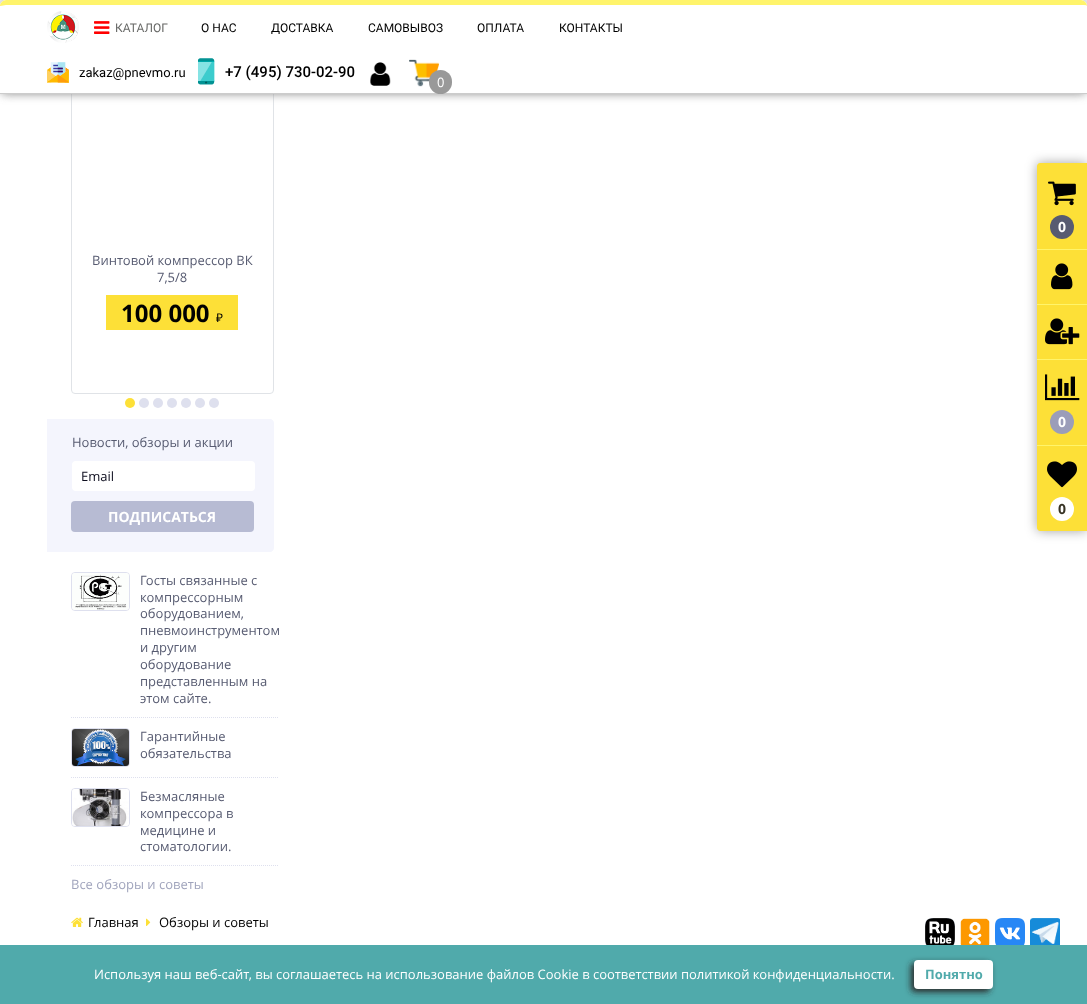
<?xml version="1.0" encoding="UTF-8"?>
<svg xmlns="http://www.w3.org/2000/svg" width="1087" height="1004">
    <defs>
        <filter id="blur1" x="-50%" y="-200%" width="200%" height="500%"><feGaussianBlur stdDeviation="5"/></filter>
        <filter id="blur2" x="-50%" y="-200%" width="200%" height="500%"><feGaussianBlur stdDeviation="6"/></filter>
        <filter id="blur3" x="-50%" y="-200%" width="200%" height="500%"><feGaussianBlur stdDeviation="3"/></filter>
    </defs>
    <rect width="100%" height="100%" fill="#FFFFFF"/>
    <rect x="71.5" y="51.5" width="202" height="342" rx="3.5" fill="none" stroke="#E0E3E7"/>
    <rect x="0" y="0" width="1087" height="94" rx="6" fill="#929292" filter="url(#blur1)"/>
    <path d="M 6 0 H 1081 C 1084.5 0 1087 2.5 1087 6 V 94 H 0 V 6 C 0 2.5 2.5 0 6 0 Z" fill="#FFFFFF"/>
    <path d="M 6 0 C 3 0 0 3 0 6 L 6 5 H 1081 C 1084 5 1087 5 1087 6 C 1087 3 1084 0 1081 0 Z" fill="#FFF46B"/>
    <rect x="0" y="93" width="1087" height="1" fill="#CCCCCC"/>
    <image x="47" y="11" width="32" height="32" href="img_01.png"/>
    <image x="94" y="21" width="16" height="13" href="img_02.png"/>
    <text x="115" y="32" font-family="Roboto" font-size="12" fill="#686967">КАТАЛОГ</text>
    <text x="201" y="32" font-family="Roboto" font-size="12" fill="#000000">О НАС</text>
    <text x="271" y="32" font-family="Roboto" font-size="12" fill="#000000">ДОСТАВКА</text>
    <text x="368" y="32" font-family="Roboto" font-size="12" fill="#000000">САМОВЫВОЗ</text>
    <text x="477" y="32" font-family="Roboto" font-size="12" fill="#000000">ОПЛАТА</text>
    <text x="559" y="32" font-family="Roboto" font-size="12" fill="#000000">КОНТАКТЫ</text>
    <image x="47" y="62" width="22" height="21" href="img_03.png"/>
    <text x="79" y="77" font-family="Roboto" font-size="13" fill="#000000">zakaz@pnevmo.ru</text>
    <image x="198" y="58" width="17" height="27" href="img_04.png"/>
    <text x="225" y="77" font-family="Roboto" font-size="15" font-weight="500" fill="#000000">+7 (495) 730-02-90</text>
    <image x="370" y="62" width="21" height="24" href="img_05.png"/>
    <image x="409" y="59" width="30" height="28" href="img_06.png"/>
    <rect x="429" y="70" width="23" height="24" rx="11.5" fill="#999999"/>
    <text x="437" y="87" font-family="Open Sans" font-size="13" fill="#FFFFFF">0</text>
    <text x="92" y="265" font-family="Open Sans" font-size="13" fill="#575B71">Винтовой компрессор ВК</text>
    <text x="157" y="282" font-family="Open Sans" font-size="13" fill="#575B71">7,5/8</text>
    <rect x="106" y="295" width="132" height="35" fill="#FDE037"/>
    <text x="121" y="322" font-family="Open Sans" font-size="24" font-weight="700" fill="#000000">100 000</text>
    <text x="216" y="322" font-family="Noto Sans" font-size="12" fill="#000000">₽</text>
    <circle cx="130" cy="403" r="5" fill="#FDE037"/>
    <circle cx="144" cy="403" r="5" fill="#DEE0EE"/>
    <circle cx="158" cy="403" r="5" fill="#DEE0EE"/>
    <circle cx="172" cy="403" r="5" fill="#DEE0EE"/>
    <circle cx="186" cy="403" r="5" fill="#DEE0EE"/>
    <circle cx="200" cy="403" r="5" fill="#DEE0EE"/>
    <circle cx="214" cy="403" r="5" fill="#DEE0EE"/>
    <path d="M 47 419 H 270 C 272 419 274 421 274 423 V 548 C 274 550 272 552 270 552 H 47 Z" fill="#F4F5FD"/>
    <text x="72" y="447" font-family="Open Sans" font-size="13" fill="#575B71">Новости, обзоры и акции</text>
    <rect x="72" y="461" width="183" height="30" rx="4" fill="#FFFFFF"/>
    <text x="81" y="481" font-family="Open Sans" font-size="13" fill="#0D0D1E">Email</text>
    <rect x="71" y="501" width="183" height="31" rx="4" fill="#B7BBD3"/>
    <text x="108" y="522" font-family="Open Sans" font-size="14" font-weight="700" fill="#FFFFFF">ПОДПИСАТЬСЯ</text>
    <path d="M 71 717.5 H 279" fill="none" stroke="#DEE0EE" stroke-dasharray="1 1"/>
    <rect x="71.5" y="572.5" width="58" height="38" rx="3.5" fill="none" stroke="#DEE0EE"/>
    <image x="72" y="573" width="57" height="37" href="img_07.png"/>
    <text font-family="Open Sans" font-size="13" fill="#575B71">
        <tspan x="140" y="585">Госты связанные с</tspan>
        <tspan x="140" y="602">компрессорным</tspan>
        <tspan x="140" y="618">оборудованием,</tspan>
        <tspan x="140" y="635">пневмоинструментом</tspan>
        <tspan x="140" y="652">и другим</tspan>
        <tspan x="140" y="669">оборудование</tspan>
        <tspan x="140" y="686">представленным на</tspan>
        <tspan x="140" y="703">этом сайте.</tspan>
    </text>
    <path d="M 71 777.5 H 279" fill="none" stroke="#DEE0EE" stroke-dasharray="1 1"/>
    <rect x="71.5" y="728.5" width="58" height="38" rx="3.5" fill="none" stroke="#DEE0EE"/>
    <image x="72" y="729" width="57" height="37" href="img_08.png"/>
    <text font-family="Open Sans" font-size="13" fill="#575B71">
        <tspan x="140" y="741">Гарантийные</tspan>
        <tspan x="140" y="758">обязательства</tspan>
    </text>
    <path d="M 71 865.5 H 279" fill="none" stroke="#DEE0EE" stroke-dasharray="1 1"/>
    <rect x="71.5" y="788.5" width="58" height="38" rx="3.5" fill="none" stroke="#DEE0EE"/>
    <image x="72" y="789" width="57" height="37" href="img_09.png"/>
    <text font-family="Open Sans" font-size="13" fill="#575B71">
        <tspan x="140" y="801">Безмасляные</tspan>
        <tspan x="140" y="818">компрессора в</tspan>
        <tspan x="140" y="835">медицине и</tspan>
        <tspan x="140" y="851">стоматологии.</tspan>
    </text>
    <text x="71" y="889" font-family="Open Sans" font-size="13" fill="#A0A4BC">Все обзоры и советы</text>
    <image x="71" y="917" width="12" height="10" href="img_10.png"/>
    <text x="88" y="927" font-family="Open Sans" font-size="13" fill="#000000">Главная</text>
    <image x="146" y="918" width="5" height="8" href="img_11.png"/>
    <text x="159" y="927" font-family="Open Sans" font-size="13" fill="#000000">Обзоры и советы</text>
    <image x="925" y="918" width="30" height="27" href="img_12.png"/>
    <image x="960" y="918" width="30" height="27" href="img_13.png"/>
    <image x="995" y="918" width="30" height="27" href="img_14.png"/>
    <image x="1030" y="918" width="30" height="27" href="img_15.png"/>
    <rect x="1037" y="163" width="50" height="368" rx="3" fill="#000000" fill-opacity="0.36" filter="url(#blur2)"/>
    <path d="M 1040 163 H 1087 V 531 H 1040 C 1038.5 531 1037 529.5 1037 528 V 166 C 1037 164.5 1038.5 163 1040 163 Z" fill="#FDE037"/>
    <rect x="1037" y="249" width="50" height="1" fill="#FFF46B"/>
    <image x="1048" y="181" width="28" height="25" href="img_16.png"/>
    <circle cx="1062" cy="227" r="12" fill="#575B71"/>
    <text x="1058" y="232" font-family="Open Sans" font-size="14" font-weight="700" fill="#FFFFFF">0</text>
    <rect x="1037" y="304" width="50" height="1" fill="#FFF46B"/>
    <image x="1051" y="263" width="22" height="27" href="img_17.png"/>
    <rect x="1037" y="359" width="50" height="1" fill="#FFF46B"/>
    <image x="1045" y="318" width="35" height="27" href="img_18.png"/>
    <rect x="1037" y="445" width="50" height="1" fill="#FFF46B"/>
    <image x="1045" y="374" width="35" height="27" href="img_19.png"/>
    <circle cx="1062" cy="422" r="12" fill="#9B9DB9"/>
    <text x="1058" y="427" font-family="Open Sans" font-size="14" font-weight="700" fill="#FFFFFF">0</text>
    <image x="1047" y="461" width="30" height="27" href="img_20.png"/>
    <circle cx="1062" cy="509" r="12" fill="#FFFFFF"/>
    <text x="1058" y="514" font-family="Open Sans" font-size="14" font-weight="700" fill="#363224">0</text>
    <rect x="0" y="945" width="1087" height="59" fill="#50AAAB"/>
    <text x="94" y="979" font-family="Open Sans" font-size="13" fill="#FFFFFF">Используя наш веб-сайт, вы соглашаетесь на использование файлов Cookie в соответствии политикой конфиденциальности.</text>
    <rect x="911" y="963" width="79" height="29" rx="4" fill="#2B2B2B" filter="url(#blur3)"/>
    <rect x="914" y="960" width="79" height="29" rx="4" fill="#FFFFFF"/>
    <text x="925" y="979" font-family="Open Sans" font-size="13" font-weight="700" fill="#50AAAB">Понятно</text>
</svg>
